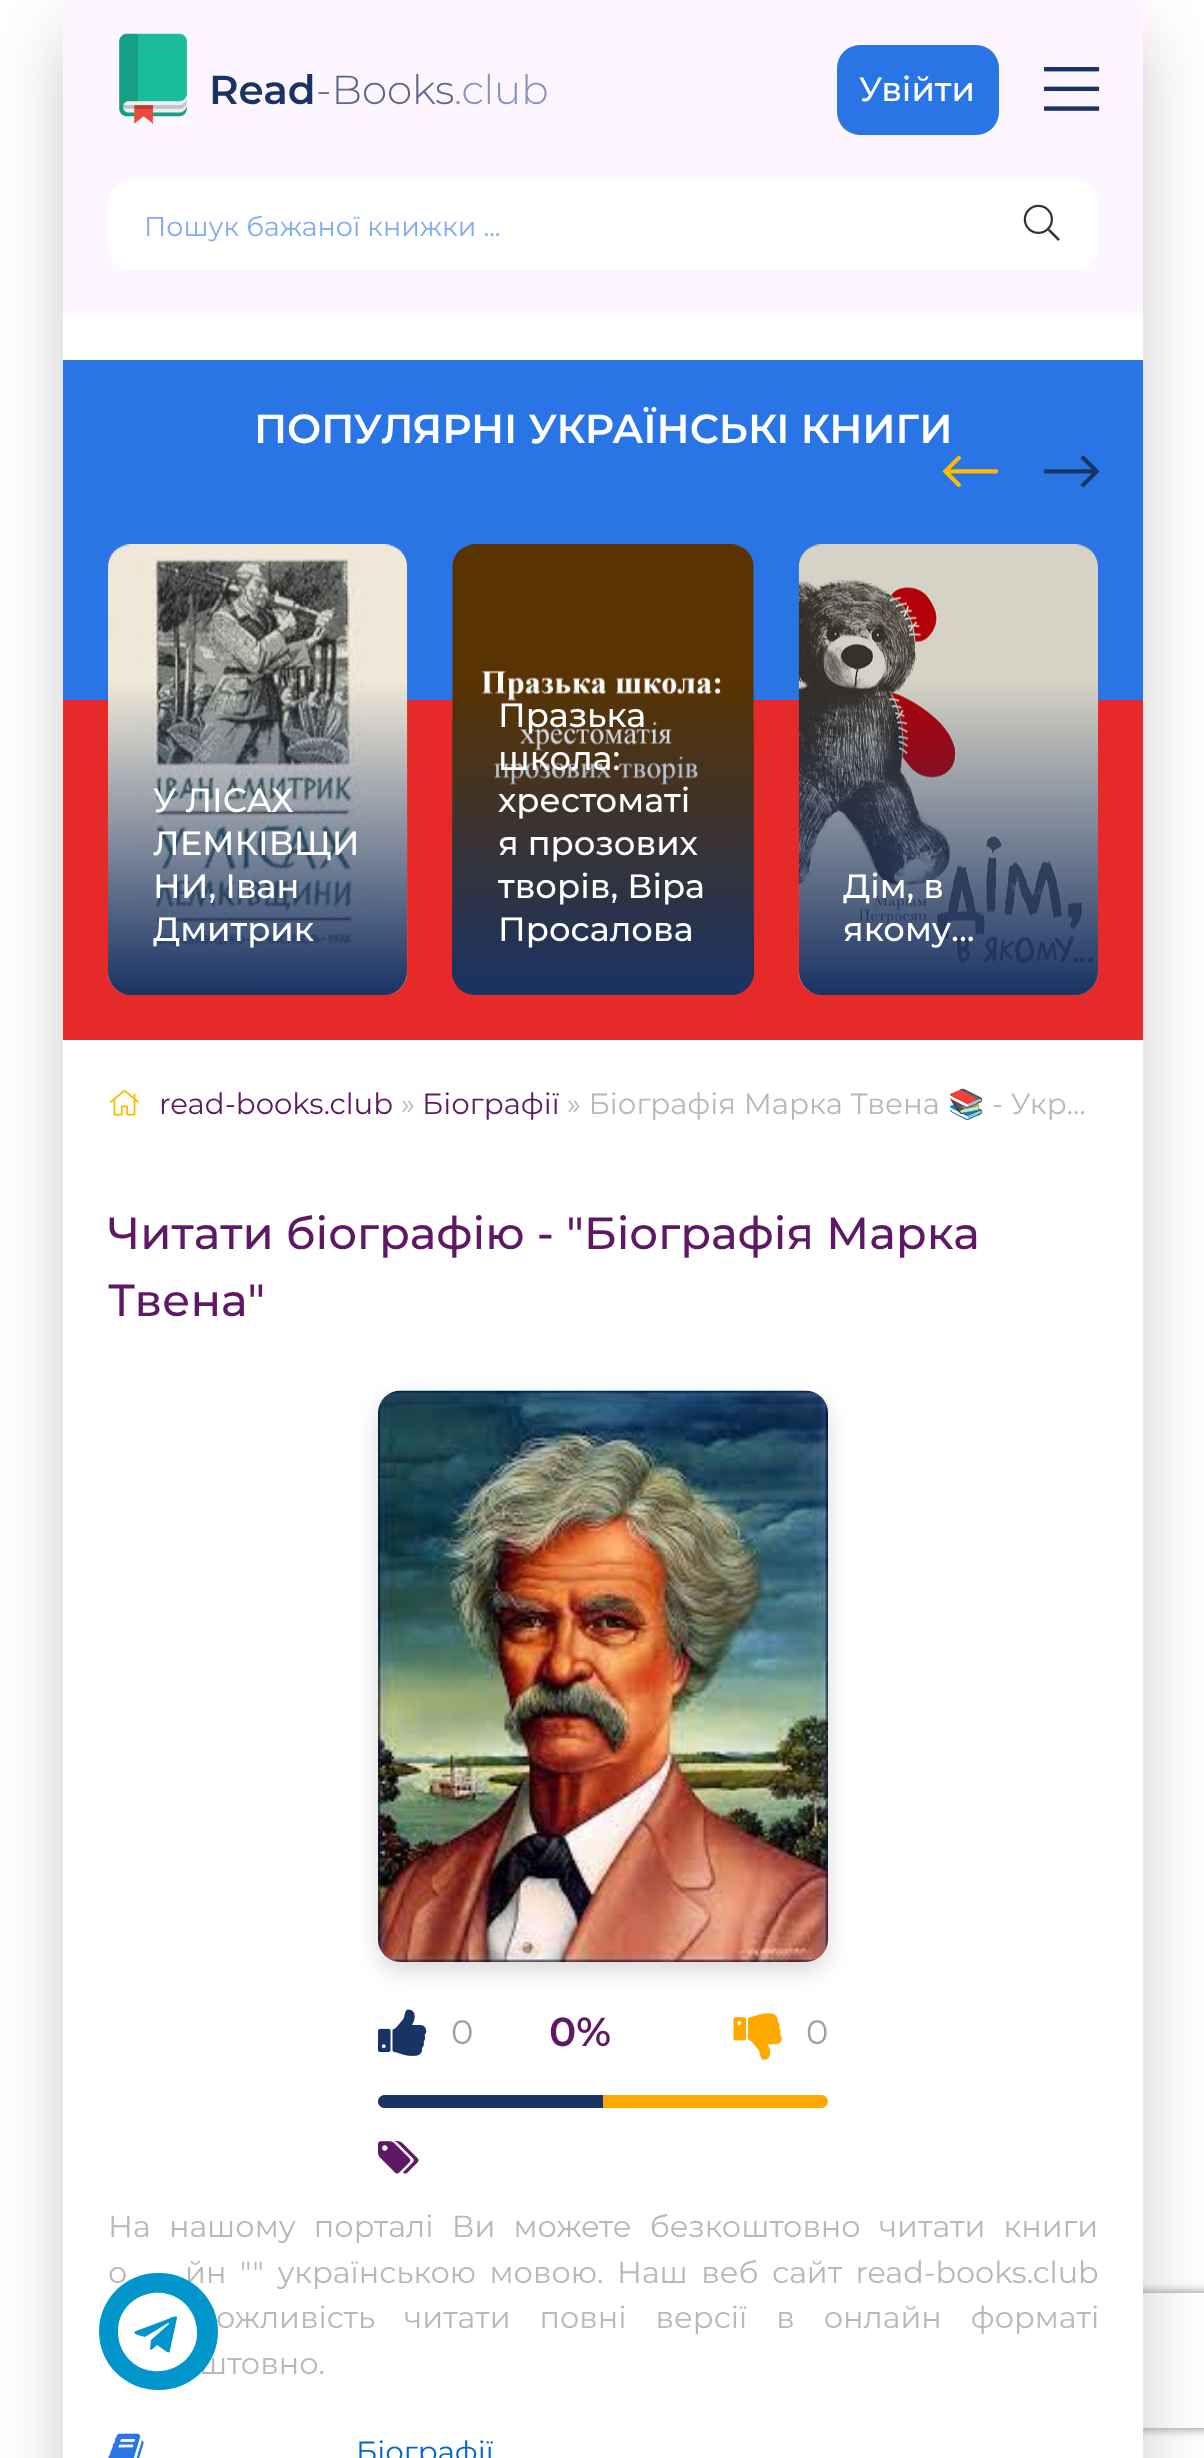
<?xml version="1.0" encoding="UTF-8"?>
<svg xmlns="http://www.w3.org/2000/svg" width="1204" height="2458">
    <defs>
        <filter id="blur1" x="-50%" y="-200%" width="200%" height="500%"><feGaussianBlur stdDeviation="34"/></filter>
        <clipPath id="clip1"><path d="M 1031 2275 H 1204 V 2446 H 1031 Z M 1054 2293 H 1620 C 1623 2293 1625 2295 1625 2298 V 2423 C 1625 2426 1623 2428 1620 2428 H 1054 C 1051 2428 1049 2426 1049 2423 V 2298 C 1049 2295 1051 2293 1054 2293 Z" clip-rule="evenodd"/></clipPath>
        <filter id="blur2" x="-50%" y="-200%" width="200%" height="500%"><feGaussianBlur stdDeviation="5.5"/></filter>
        <linearGradient id="g1" gradientUnits="userSpaceOnUse" x1="258" y1="680" x2="258" y2="995"><stop offset="0" stop-color="#193364" stop-opacity="0"/><stop offset="1" stop-color="#193364"/></linearGradient>
        <linearGradient id="g2" gradientUnits="userSpaceOnUse" x1="603" y1="680" x2="603" y2="995"><stop offset="0" stop-color="#193364" stop-opacity="0"/><stop offset="1" stop-color="#193364"/></linearGradient>
        <linearGradient id="g3" gradientUnits="userSpaceOnUse" x1="948" y1="680" x2="948" y2="995"><stop offset="0" stop-color="#193364" stop-opacity="0"/><stop offset="1" stop-color="#193364"/></linearGradient>
        <filter id="blur3" x="-50%" y="-200%" width="200%" height="500%"><feGaussianBlur stdDeviation="11"/></filter>
    </defs>
    <rect width="100%" height="100%" fill="#FFFFFF"/>
    <rect x="63" y="34" width="1080" height="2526" fill="#000000" fill-opacity="0.2" filter="url(#blur1)"/>
    <g clip-path="url(#clip1)">
        <rect x="1049" y="2293" width="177" height="135" rx="5" fill="#808080" filter="url(#blur2)"/>
    </g>
    <rect x="63" y="315" width="1080" height="2143" fill="#FFFFFF"/>
    <rect x="63" y="0" width="1080" height="315" fill="#FDF5FF"/>
    <image x="119" y="33" width="73" height="91" href="img_01.png"/>
    <text x="209" y="104" font-family="Montserrat" font-size="40.5" font-weight="600" fill="#193364">Read</text>
    <text x="316" y="104" font-family="Montserrat" font-size="40.5" font-weight="300" fill="#5A668C">-Books</text>
    <text x="454" y="104" font-family="Montserrat" font-size="40.5" font-weight="300" fill="#8491BB">.club</text>
    <rect x="837" y="45" width="162" height="90" rx="23" fill="#2A75E6"/>
    <text x="859" y="101" font-family="Montserrat" font-size="33.75" font-weight="500" fill="#FFFFFF">Увійти</text>
    <image x="1044" y="67" width="56" height="44" href="img_02.png"/>
    <rect x="108" y="180" width="990" height="90" rx="23" fill="#FFFFFF"/>
    <text x="144" y="236" font-family="Montserrat" font-size="27" fill="#7FACF0">Пошук бажаної книжки ...</text>
    <image x="1023" y="204" width="37" height="37" href="img_03.png"/>
    <rect x="63" y="360" width="1080" height="340" fill="#2A75E6"/>
    <rect x="63" y="700" width="1080" height="340" fill="#E62A2A"/>
    <text x="254" y="443" font-family="Montserrat" font-size="40.5" font-weight="600" fill="#FFFFFF">ПОПУЛЯРНІ УКРАЇНСЬКІ КНИГИ</text>
    <image x="942" y="455" width="56" height="33" href="img_04.png"/>
    <image x="1044" y="455" width="56" height="33" href="img_05.png"/>
    <image x="108" y="544" width="300" height="450" href="img_06.png"/>
    <path d="M 108 680 H 407 V 972 C 407 984.5 396.5 995 384 995 H 131 C 118.5 995 108 984.5 108 972 Z" fill="url(#g1)"/>
    <text font-family="Montserrat" font-size="33.75" font-weight="500" fill="#FFFFFF">
        <tspan x="153" y="812">У ЛІСАХ</tspan>
        <tspan x="153" y="855">ЛЕМКІВЩИ</tspan>
        <tspan x="153" y="898">НИ, Іван</tspan>
        <tspan x="153" y="941">Дмитрик</tspan>
    </text>
    <image x="452" y="544" width="302" height="450" href="img_07.png"/>
    <path d="M 452 680 H 754 V 972 C 754 984.5 743.5 995 731 995 H 475 C 462.5 995 452 984.5 452 972 Z" fill="url(#g2)"/>
    <text font-family="Montserrat" font-size="33.75" font-weight="500" fill="#FFFFFF">
        <tspan x="498" y="727">Празька</tspan>
        <tspan x="498" y="770">школа:</tspan>
        <tspan x="498" y="812">хрестоматі</tspan>
        <tspan x="498" y="855">я прозових</tspan>
        <tspan x="498" y="898">творів, Віра</tspan>
        <tspan x="498" y="941">Просалова</tspan>
    </text>
    <image x="798" y="544" width="300" height="450" href="img_08.png"/>
    <path d="M 799 680 H 1098 V 972 C 1098 984.5 1087.5 995 1075 995 H 822 C 809.5 995 799 984.5 799 972 Z" fill="url(#g3)"/>
    <text font-family="Montserrat" font-size="33.75" font-weight="500" fill="#FFFFFF">
        <tspan x="843" y="898">Дім, в</tspan>
        <tspan x="843" y="941">якому…</tspan>
    </text>
    <image x="109" y="1090" width="30" height="26" href="img_09.png"/>
    <text x="159" y="1114" font-family="Montserrat" font-size="29.25" fill="#5F1964">read-books.club</text>
    <text x="401" y="1114" font-family="Montserrat" font-size="29.25" fill="#B9B7B7">»</text>
    <text x="422" y="1114" font-family="Montserrat" font-size="29.25" fill="#5F1964">Біографії</text>
    <text x="567" y="1114" font-family="Montserrat" font-size="29.25" fill="#B9B7B7">» Біографія Марка Твена</text>
    <text x="948" y="1114" font-family="Noto Color Emoji" font-size="29.25" fill="#B9B7B7">📚</text>
    <text x="992" y="1114" font-family="Montserrat" font-size="29.25" fill="#B9B7B7">- Укр…</text>
    <text font-family="Montserrat" font-size="45" font-weight="500" fill="#5F1964">
        <tspan x="108" y="1249">Читати біографію - "Біографія Марка</tspan>
        <tspan x="108" y="1316">Твена"</tspan>
    </text>
    <rect x="378" y="1400" width="450" height="571" rx="23" fill="#000000" fill-opacity="0.15" filter="url(#blur3)"/>
    <image x="378" y="1390" width="450" height="572" href="img_10.png"/>
    <image x="378" y="2009" width="49" height="47" href="img_11.png"/>
    <text x="451" y="2044" font-family="Montserrat" font-size="33.75" fill="#A0A0A0">0</text>
    <text x="549" y="2046" font-family="Montserrat" font-size="40.5" font-weight="600" fill="#5F1964">0%</text>
    <image x="733" y="2013" width="49" height="47" href="img_12.png"/>
    <text x="806" y="2044" font-family="Montserrat" font-size="33.75" fill="#A0A0A0">0</text>
    <rect x="378" y="2095" width="450" height="13" rx="6.5" fill="#FFA800"/>
    <path d="M 384.5 2095 H 603 V 2108 H 384.5 C 381 2108 378 2105 378 2101.5 C 378 2098 381 2095 384.5 2095 Z" fill="#193364"/>
    <image x="378" y="2141" width="41" height="33" href="img_13.png"/>
    <text font-family="Montserrat" font-size="30.4" fill="#B9B7B7">
        <tspan x="108" y="2237" word-spacing="10.25">На нашому порталі Ви можете безкоштовно читати книги</tspan>
        <tspan x="108" y="2283" word-spacing="5.5">о</tspan>
    </text>
    <text x="185" y="2283" word-spacing="5.5" font-family="Montserrat" font-size="30.4" fill="#B9B7B7">йн "" українською мовою. Наш веб сайт read-books.club</text>
    <text x="216" y="2328" word-spacing="21" font-family="Montserrat" font-size="30.4" fill="#B9B7B7">ожливість читати повні версії в онлайн форматі</text>
    <text x="199" y="2374" font-family="Montserrat" font-size="30.4" fill="#B9B7B7">штовно.</text>
    <image x="108" y="2433" width="36" height="25" href="img_14.png"/>
    <text x="356" y="2462" font-family="Montserrat" font-size="29.25" fill="#0066CC">Біографії</text>
    <rect x="99" y="2273" width="119" height="117" rx="58.5" fill="#0096CC"/>
    <path d="M 170 2350 L 177 2318 C 177 2314 168 2319 168 2319 L 136 2331 C 129 2334 145 2337 145 2337 L 168 2323 C 168 2323 170 2323 169 2324 L 151 2340 L 150 2350 C 152 2350 156 2346 157 2345 L 167 2352 C 169 2353 170 2352 170 2350 Z M 194 2317 C 197 2325 198 2334 196 2342 C 186 2378 136 2382 121 2347 C 118 2340 117 2331 119 2322 C 129 2286 179 2282 194 2317 Z" fill="#FFFFFF"/>
</svg>
